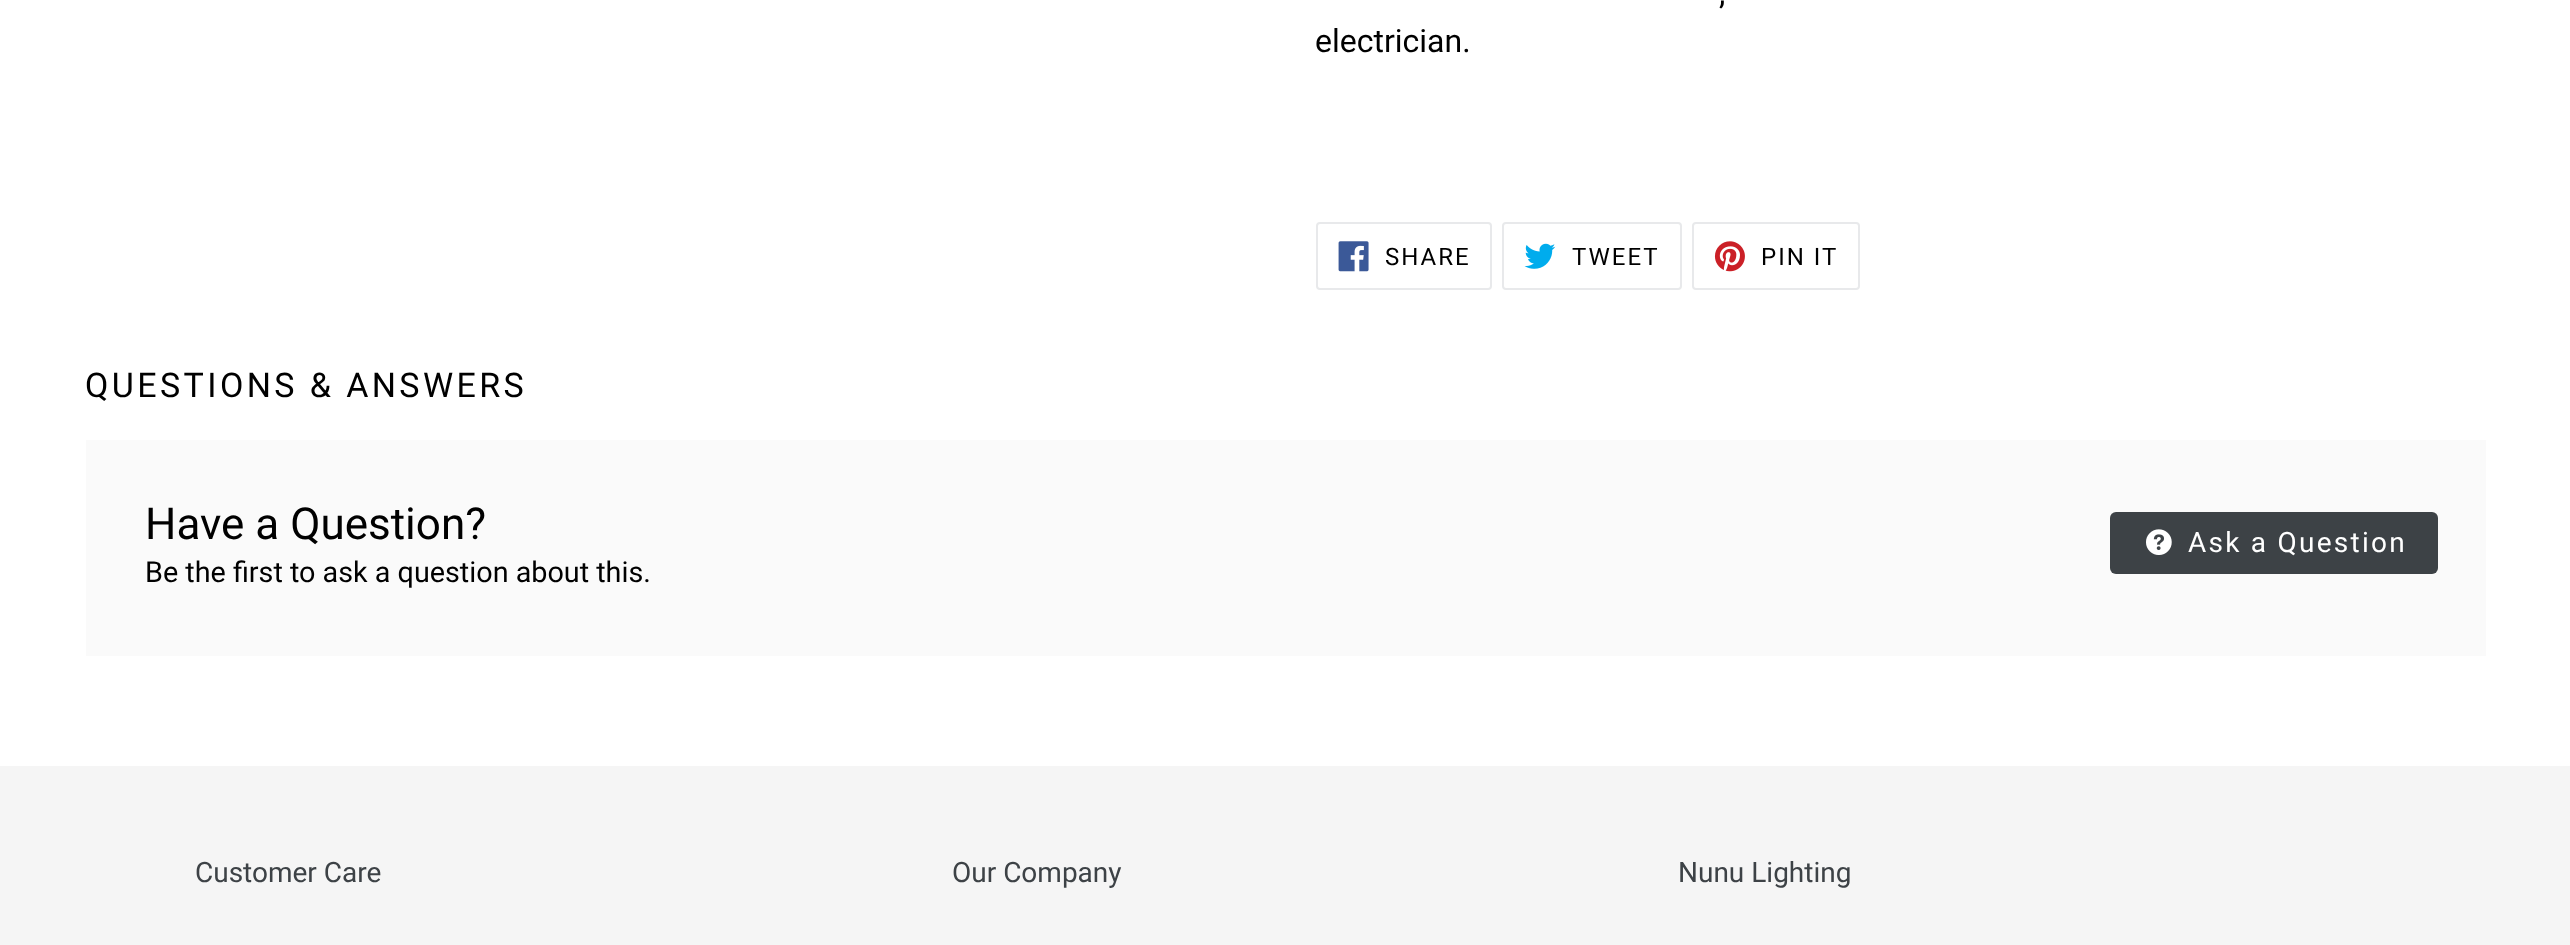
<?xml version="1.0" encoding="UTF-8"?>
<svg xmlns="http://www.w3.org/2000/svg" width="2570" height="945">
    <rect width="100%" height="100%" fill="#FFFFFF"/>
    <text x="1719" y="4" font-family="Roboto" font-size="32" fill="#000000">,</text>
    <text x="1315" y="52" font-family="Roboto" font-size="32" fill="#000000">electrician.</text>
    <rect x="1317" y="223" width="174" height="66" rx="3" fill="none" stroke="#E8E9EB" stroke-width="2"/>
    <image x="1338" y="241" width="31" height="31" href="img_01.png"/>
    <text x="1385" y="265" font-family="Roboto" font-size="24" letter-spacing="2" fill="#000000">SHARE</text>
    <rect x="1503" y="223" width="178" height="66" rx="3" fill="none" stroke="#E8E9EB" stroke-width="2"/>
    <image x="1524" y="243" width="32" height="26" href="img_02.png"/>
    <text x="1572" y="265" font-family="Roboto" font-size="24" letter-spacing="2" fill="#000000">TWEET</text>
    <rect x="1693" y="223" width="166" height="66" rx="3" fill="none" stroke="#E8E9EB" stroke-width="2"/>
    <image x="1714" y="241" width="31" height="31" href="img_03.png"/>
    <text x="1761" y="265" font-family="Roboto" font-size="24" letter-spacing="2" fill="#000000">PIN IT</text>
    <text x="85" y="397" font-family="Roboto" font-size="34" letter-spacing="3.4" fill="#000000">QUESTIONS &amp; ANSWERS</text>
    <rect x="86" y="440" width="2400" height="216" fill="#FAFAFA"/>
    <text x="145" y="539" font-family="Roboto" font-size="44" fill="#000000">Have a Question?</text>
    <text x="145" y="582" font-family="Roboto" font-size="28.75" fill="#000000">Be the first to ask a question about this.</text>
    <rect x="2110" y="512" width="328" height="62" rx="6" fill="#3D4246"/>
    <image x="2146" y="529" width="26" height="26" href="img_04.png"/>
    <text x="2188" y="552" font-family="Roboto" font-size="28" letter-spacing="2.25" fill="#FFFFFF">Ask a Question</text>
    <rect x="0" y="766" width="2570" height="179" fill="#F5F5F5"/>
    <text x="195" y="882" font-family="Roboto" font-size="28" fill="#3D4246">Customer Care</text>
    <text x="952" y="882" font-family="Roboto" font-size="28" fill="#3D4246">Our Company</text>
    <text x="1678" y="882" font-family="Roboto" font-size="28" fill="#3D4246">Nunu Lighting</text>
</svg>
